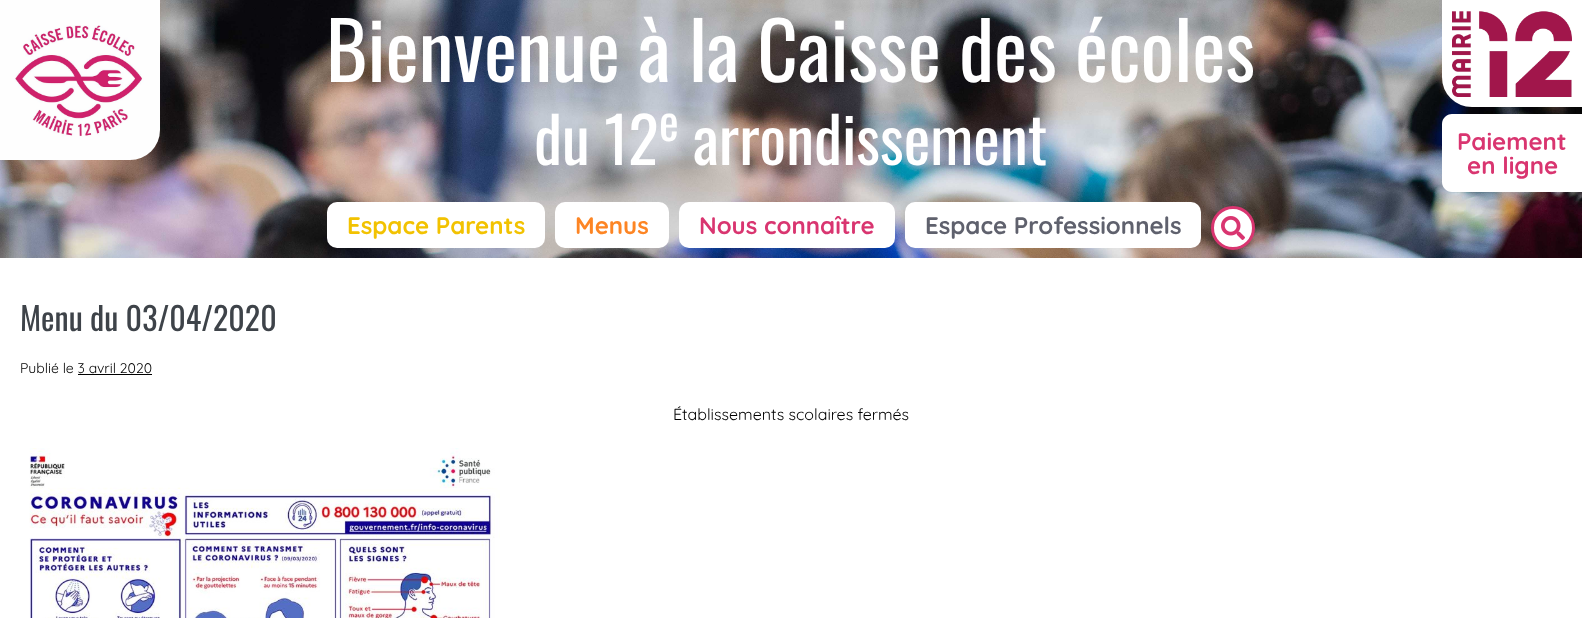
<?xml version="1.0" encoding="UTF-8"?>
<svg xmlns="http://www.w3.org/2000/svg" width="1582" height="618">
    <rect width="100%" height="100%" fill="#FFFFFF"/>
    <image x="0" y="0" width="1582" height="258" href="img_01.png"/>
    <image x="0" y="0" width="160" height="160" href="img_02.png"/>
    <text x="326" y="82" font-family="Oswald" font-size="79.1" fill="#FFFFFF">Bienvenue à la Caisse des écoles</text>
    <text x="534" y="165" font-family="Oswald" font-size="63.25" fill="#FFFFFF">du 12</text>
    <text x="659" y="141" font-family="Oswald" font-size="47" fill="#FFFFFF">e</text>
    <text x="693" y="165" font-family="Oswald" font-size="63.25" fill="#FFFFFF">arrondissement</text>
    <path d="M 1447 5 H 1577 V 102 H 1472 C 1458 102 1447 91 1447 77 Z" fill="#FFFFFF" stroke="#FFFFFF" stroke-width="10"/>
    <image x="1452" y="11" width="120" height="86" href="img_03.png"/>
    <path d="M 1452 114 H 1582 V 192 H 1452 C 1446.5 192 1442 187.5 1442 182 V 124 C 1442 118.5 1446.5 114 1452 114 Z" fill="#FFFFFF"/>
    <text x="1457" y="150" font-family="Quicksand" font-size="24" font-weight="700" fill="#D93570">Paiement</text>
    <text x="1467" y="174" font-family="Quicksand" font-size="24" font-weight="700" fill="#D93570">en ligne</text>
    <rect x="327" y="202" width="218" height="46" rx="10" fill="#FFFFFF"/>
    <text x="347" y="234" font-family="Quicksand" font-size="24" font-weight="700" fill="#F2C201">Espace Parents</text>
    <rect x="555" y="202" width="114" height="46" rx="10" fill="#FFFFFF"/>
    <text x="575" y="234" font-family="Quicksand" font-size="24" font-weight="700" fill="#FD8524">Menus</text>
    <rect x="679" y="202" width="216" height="46" rx="10" fill="#FFFFFF"/>
    <text x="699" y="234" font-family="Quicksand" font-size="24" font-weight="700" fill="#D93570">Nous connaître</text>
    <rect x="905" y="202" width="296" height="46" rx="10" fill="#FFFFFF"/>
    <text x="925" y="234" font-family="Quicksand" font-size="24" font-weight="700" fill="#5F616D">Espace Professionnels</text>
    <circle cx="1233" cy="228" r="20.5" fill="#FFFFFF" stroke="#D93570" stroke-width="3"/>
    <image x="1221" y="216" width="24" height="24" href="img_04.png"/>
    <text x="20" y="331" font-family="Oswald" font-size="32" fill="#3E4349">Menu du 03/04/2020</text>
    <text x="20" y="373" font-family="Quicksand" font-size="14" fill="#000000">Publié le 3 avril 2020</text>
    <rect x="78" y="374" width="74" height="1" fill="#000000"/>
    <text x="673" y="420" font-family="Quicksand" font-size="16" fill="#000000">Établissements scolaires fermés</text>
    <image x="29" y="448" width="471" height="170" href="img_05.png"/>
</svg>
